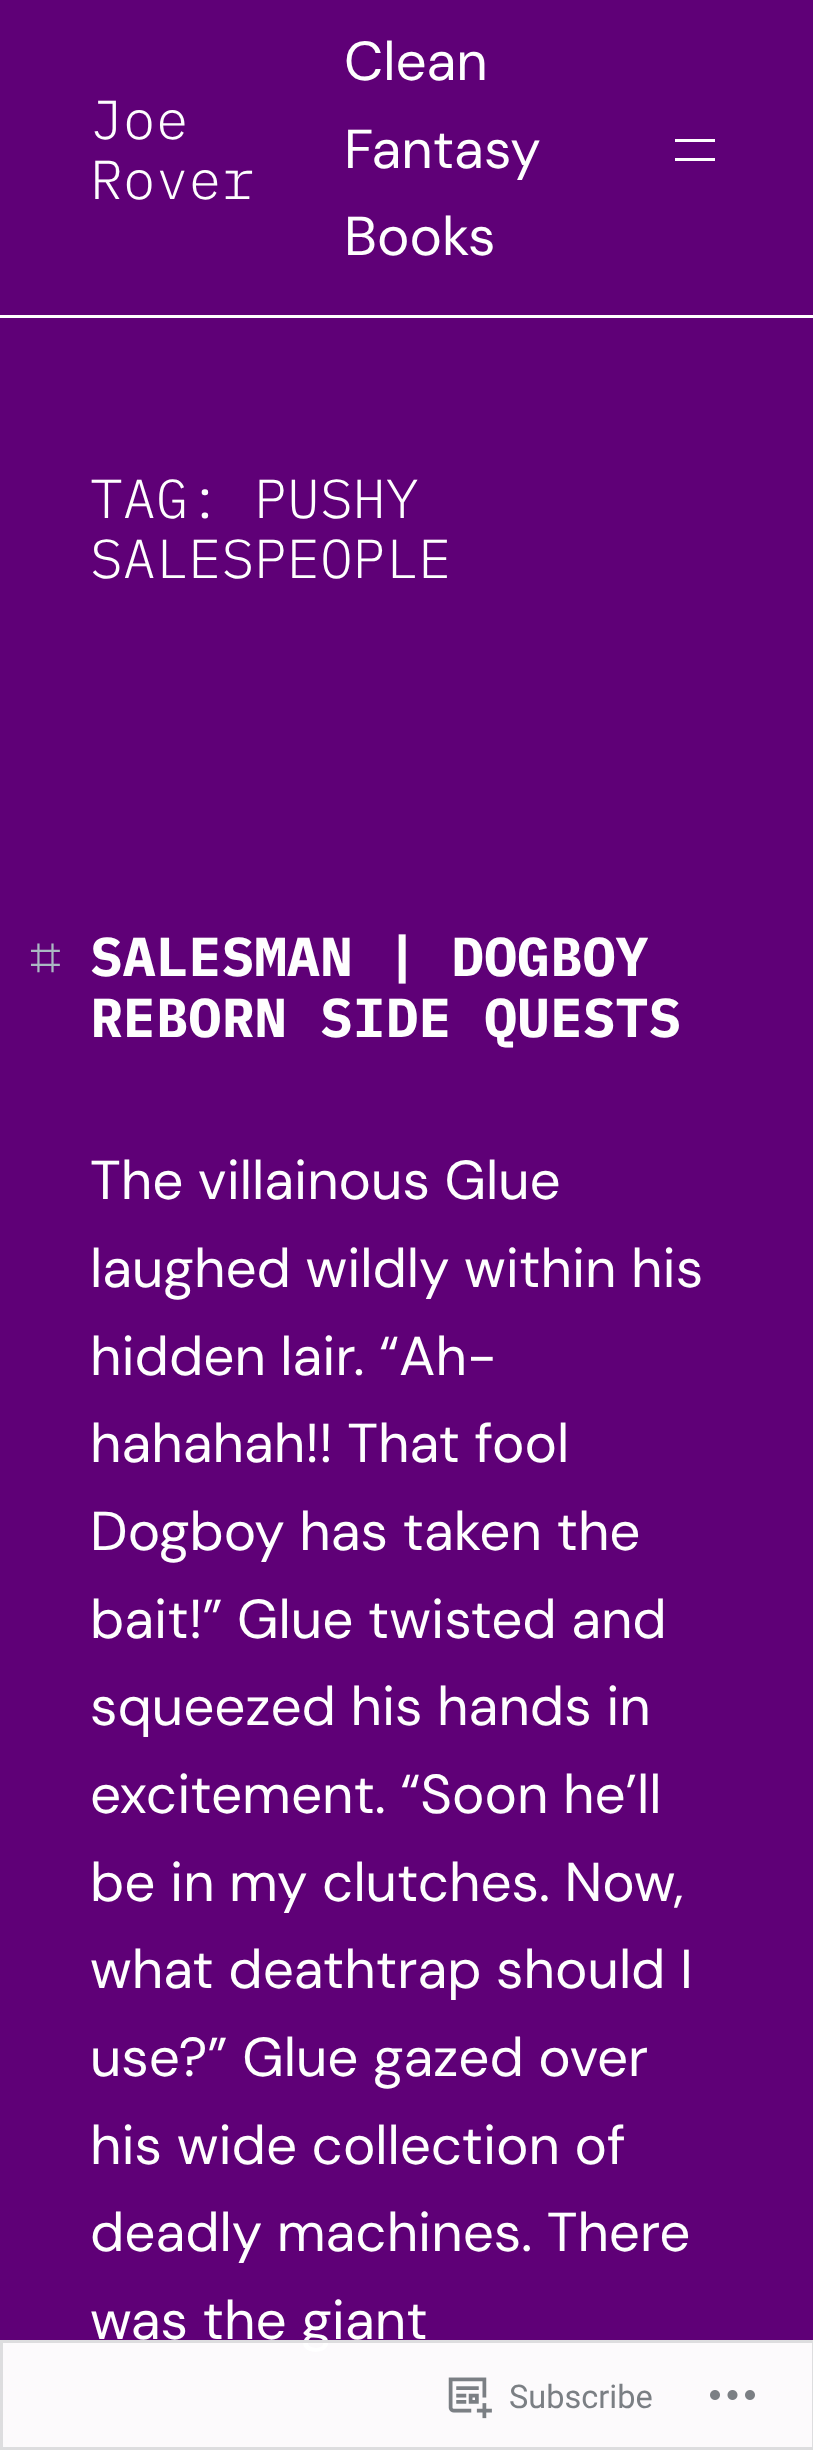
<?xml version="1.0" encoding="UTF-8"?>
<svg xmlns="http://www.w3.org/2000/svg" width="813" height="2450">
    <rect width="100%" height="100%" fill="#5F0077"/>
    <text font-family="IBM Plex Mono" font-size="54.75" font-weight="300" fill="#FEFEFE">
        <tspan x="90" y="139">Joe</tspan>
        <tspan x="90" y="199">Rover</tspan>
    </text>
    <text font-family="DM Sans" font-size="54.75" fill="#FEFEFE">
        <tspan x="344" y="80">Clean</tspan>
        <tspan x="344" y="168">Fantasy</tspan>
        <tspan x="344" y="255">Books</tspan>
    </text>
    <rect x="675" y="139" width="40" height="3" fill="#FEFEFE"/>
    <rect x="675" y="158" width="40" height="3" fill="#FEFEFE"/>
    <rect x="0" y="315" width="813" height="3" fill="#FFFFFF"/>
    <text font-family="IBM Plex Mono" font-size="54.75" font-weight="300" fill="#FEFEFE">
        <tspan x="90" y="518">TAG: PUSHY</tspan>
        <tspan x="90" y="578">SALESPEOPLE</tspan>
    </text>
    <text x="30" y="976" font-family="FreeSerif" font-size="54.75" fill="#ABB8C3">⌗</text>
    <text font-family="IBM Plex Mono" font-size="54.75" font-weight="700" fill="#FEFEFE">
        <tspan x="90" y="976">SALESMAN | DOGBOY</tspan>
        <tspan x="90" y="1037">REBORN SIDE QUESTS</tspan>
    </text>
    <text font-family="DM Sans" font-size="54.75" fill="#FEFEFE">
        <tspan x="90" y="1199">The villainous Glue</tspan>
        <tspan x="90" y="1287">laughed wildly within his</tspan>
        <tspan x="90" y="1375">hidden lair. “Ah-</tspan>
        <tspan x="90" y="1462">hahahah!! That fool</tspan>
        <tspan x="90" y="1550">Dogboy has taken the</tspan>
        <tspan x="90" y="1638">bait!” Glue twisted and</tspan>
        <tspan x="90" y="1725">squeezed his hands in</tspan>
        <tspan x="90" y="1813">excitement. “Soon he’ll</tspan>
        <tspan x="90" y="1901">be in my clutches. Now,</tspan>
        <tspan x="90" y="1988">what deathtrap should I</tspan>
        <tspan x="90" y="2076">use?” Glue gazed over</tspan>
        <tspan x="90" y="2164">his wide collection of</tspan>
        <tspan x="90" y="2251">deadly machines. There</tspan>
        <tspan x="90" y="2339">was the giant</tspan>
    </text>
    <rect x="0" y="2340" width="813" height="110" fill="#FFFFFF" fill-opacity="0.98"/>
    <rect x="1.5" y="2341.5" width="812" height="107" fill="none" stroke="#DCDCDE" stroke-opacity="0.98" stroke-width="3"/>
    <image x="448" y="2377" width="44" height="42" href="img_01.png"/>
    <text x="509" y="2408" font-family="Roboto" font-size="32.5" fill="#7B7F84">Subscribe</text>
    <image x="710" y="2390" width="45" height="10" href="img_02.png"/>
</svg>
